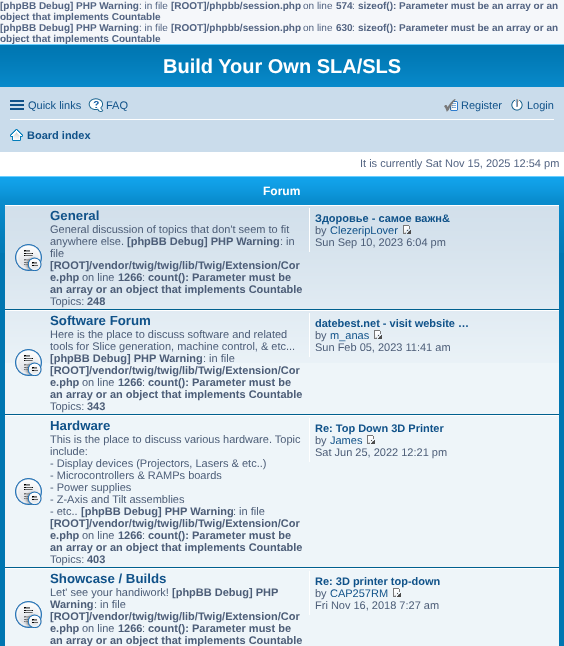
<?xml version="1.0" encoding="UTF-8"?>
<svg xmlns="http://www.w3.org/2000/svg" width="564" height="646">
    <rect width="100%" height="100%" fill="#F5F7FA"/>
    <text x="0" y="9" font-family="Liberation Sans" font-size="10" font-weight="700" fill="#536482">[phpBB Debug] PHP Warning</text>
    <text x="139" y="9" font-family="Liberation Sans" font-size="10" fill="#536482">: in file</text>
    <text x="171" y="9" font-family="Liberation Sans" font-size="10" font-weight="700" fill="#536482">[ROOT]/phpbb/session.php</text>
    <text x="303" y="9" font-family="Liberation Sans" font-size="10" fill="#536482">on line</text>
    <text x="336" y="9" font-family="Liberation Sans" font-size="10" font-weight="700" fill="#536482">574</text>
    <text x="352" y="9" font-family="Liberation Sans" font-size="10" fill="#536482">:</text>
    <text x="358" y="9" font-family="Liberation Sans" font-size="10" font-weight="700" fill="#536482">sizeof(): Parameter must be an array or an</text>
    <text font-family="Liberation Sans" font-size="10" font-weight="700" fill="#536482">
        <tspan x="0" y="20">object that implements Countable</tspan>
        <tspan x="0" y="31">[phpBB Debug] PHP Warning</tspan>
    </text>
    <text x="139" y="31" font-family="Liberation Sans" font-size="10" fill="#536482">: in file</text>
    <text x="171" y="31" font-family="Liberation Sans" font-size="10" font-weight="700" fill="#536482">[ROOT]/phpbb/session.php</text>
    <text x="303" y="31" font-family="Liberation Sans" font-size="10" fill="#536482">on line</text>
    <text x="336" y="31" font-family="Liberation Sans" font-size="10" font-weight="700" fill="#536482">630</text>
    <text x="352" y="31" font-family="Liberation Sans" font-size="10" fill="#536482">:</text>
    <text x="358" y="31" font-family="Liberation Sans" font-size="10" font-weight="700" fill="#536482">sizeof(): Parameter must be an array or an</text>
    <image x="0" y="44" width="564" height="43" href="img_01.png"/>
    <text x="0" y="42" font-family="Liberation Sans" font-size="10" font-weight="700" fill="#536482">object that implements Countable</text>
    <rect x="0" y="152" width="564" height="24" fill="#FFFFFF"/>
    <text x="163" y="73" font-family="Liberation Sans" font-size="20" font-weight="700" fill="#FFFFFF">Build Your Own SLA/SLS</text>
    <rect x="0" y="87" width="564" height="65" fill="#CADCEB"/>
    <rect x="10" y="100" width="14" height="2" fill="#105289"/>
    <rect x="10" y="104" width="14" height="2" fill="#105289"/>
    <rect x="10" y="108" width="14" height="2" fill="#105289"/>
    <text x="28" y="109" font-family="Liberation Sans" font-size="11" fill="#105289">Quick links</text>
    <image x="88" y="98" width="16" height="14" href="img_02.png"/>
    <text x="106" y="109" font-family="Liberation Sans" font-size="11" fill="#105289">FAQ</text>
    <image x="444" y="99" width="14" height="13" href="img_03.png"/>
    <text x="461" y="109" font-family="Liberation Sans" font-size="11" fill="#105289">Register</text>
    <image x="511" y="99" width="12" height="12" href="img_04.png"/>
    <text x="527" y="109" font-family="Liberation Sans" font-size="11" fill="#105289">Login</text>
    <rect x="10" y="119" width="544" height="1" fill="#FFFFFF"/>
    <image x="10" y="129" width="13" height="12" href="img_05.png"/>
    <text x="27" y="139" font-family="Liberation Sans" font-size="11" font-weight="700" fill="#105289">Board index</text>
    <text x="360" y="167" font-family="Liberation Sans" font-size="11" fill="#536482">It is currently Sat Nov 15, 2025 12:54 pm</text>
    <rect x="0" y="253" width="564" height="393" fill="#0076B1"/>
    <image x="0" y="176" width="564" height="77" href="img_06.png"/>
    <text x="263" y="195" font-family="Liberation Sans" font-size="12" font-weight="700" fill="#FFFFFF">Forum</text>
    <rect x="5" y="363" width="554" height="283" fill="#EEF5F9"/>
    <image x="5" y="206" width="554" height="157" href="img_07.png"/>
    <rect x="5" y="205" width="554" height="1" fill="#FFFFFF"/>
    <rect x="5" y="309" width="554" height="1" fill="#00608F"/>
    <image x="15" y="244" width="27" height="27" href="img_08.png"/>
    <text x="50" y="220" font-family="Liberation Sans" font-size="13.25" font-weight="700" fill="#105289">General</text>
    <text font-family="Liberation Sans" font-size="11" fill="#4C5D77">
        <tspan x="50" y="233">General discussion of topics that don't seem to fit</tspan>
        <tspan x="50" y="245">anywhere else.</tspan>
    </text>
    <text x="127" y="245" font-family="Liberation Sans" font-size="11" font-weight="700" fill="#4C5D77">[phpBB Debug] PHP Warning</text>
    <text x="280" y="245" font-family="Liberation Sans" font-size="11" fill="#4C5D77">: in</text>
    <text x="50" y="257" font-family="Liberation Sans" font-size="11" fill="#4C5D77">file</text>
    <text font-family="Liberation Sans" font-size="11" font-weight="700" fill="#4C5D77">
        <tspan x="50" y="269">[ROOT]/vendor/twig/twig/lib/Twig/Extension/Cor</tspan>
        <tspan x="50" y="281">e.php</tspan>
    </text>
    <text x="82" y="281" font-family="Liberation Sans" font-size="11" fill="#4C5D77">on line</text>
    <text x="118" y="281" font-family="Liberation Sans" font-size="11" font-weight="700" fill="#4C5D77">1266</text>
    <text x="142" y="281" font-family="Liberation Sans" font-size="11" fill="#4C5D77">:</text>
    <text x="148" y="281" font-family="Liberation Sans" font-size="11" font-weight="700" fill="#4C5D77">count(): Parameter must be</text>
    <text x="50" y="293" font-family="Liberation Sans" font-size="11" font-weight="700" fill="#4C5D77">an array or an object that implements Countable</text>
    <text x="50" y="305" font-family="Liberation Sans" font-size="11" fill="#4C5D77">Topics:</text>
    <text x="87" y="305" font-family="Liberation Sans" font-size="11" font-weight="700" fill="#4C5D77">248</text>
    <rect x="309" y="208" width="1" height="44" fill="#FFFFFF"/>
    <text x="315" y="222" font-family="Liberation Sans" font-size="11" font-weight="700" fill="#105289">Здоровье - самое важн&amp;</text>
    <text x="315" y="234" font-family="Liberation Sans" font-size="11" fill="#4C5D77">by</text>
    <text x="330" y="234" font-family="Liberation Sans" font-size="11" fill="#105289">ClezeripLover</text>
    <image x="403" y="225" width="8" height="9" href="img_09.png"/>
    <text x="315" y="246" font-family="Liberation Sans" font-size="11" fill="#4C5D77">Sun Sep 10, 2023 6:04 pm</text>
    <rect x="5" y="310" width="554" height="1" fill="#FFFFFF"/>
    <rect x="5" y="414" width="554" height="1" fill="#00608F"/>
    <image x="15" y="349" width="27" height="27" href="img_10.png"/>
    <text x="50" y="325" font-family="Liberation Sans" font-size="13.25" font-weight="700" fill="#105289">Software Forum</text>
    <text font-family="Liberation Sans" font-size="11" fill="#4C5D77">
        <tspan x="50" y="338">Here is the place to discuss software and related</tspan>
        <tspan x="50" y="350">tools for Slice generation, machine control, &amp; etc...</tspan>
    </text>
    <text x="50" y="362" font-family="Liberation Sans" font-size="11" font-weight="700" fill="#4C5D77">[phpBB Debug] PHP Warning</text>
    <text x="203" y="362" font-family="Liberation Sans" font-size="11" fill="#4C5D77">: in file</text>
    <text font-family="Liberation Sans" font-size="11" font-weight="700" fill="#4C5D77">
        <tspan x="50" y="374">[ROOT]/vendor/twig/twig/lib/Twig/Extension/Cor</tspan>
        <tspan x="50" y="386">e.php</tspan>
    </text>
    <text x="82" y="386" font-family="Liberation Sans" font-size="11" fill="#4C5D77">on line</text>
    <text x="118" y="386" font-family="Liberation Sans" font-size="11" font-weight="700" fill="#4C5D77">1266</text>
    <text x="142" y="386" font-family="Liberation Sans" font-size="11" fill="#4C5D77">:</text>
    <text x="148" y="386" font-family="Liberation Sans" font-size="11" font-weight="700" fill="#4C5D77">count(): Parameter must be</text>
    <text x="50" y="398" font-family="Liberation Sans" font-size="11" font-weight="700" fill="#4C5D77">an array or an object that implements Countable</text>
    <text x="50" y="410" font-family="Liberation Sans" font-size="11" fill="#4C5D77">Topics:</text>
    <text x="87" y="410" font-family="Liberation Sans" font-size="11" font-weight="700" fill="#4C5D77">343</text>
    <rect x="309" y="313" width="1" height="44" fill="#FFFFFF"/>
    <text x="315" y="327" font-family="Liberation Sans" font-size="11" font-weight="700" fill="#105289">datebest.net - visit website …</text>
    <text x="315" y="339" font-family="Liberation Sans" font-size="11" fill="#4C5D77">by</text>
    <text x="330" y="339" font-family="Liberation Sans" font-size="11" fill="#105289">m_anas</text>
    <image x="374" y="330" width="8" height="9" href="img_11.png"/>
    <text x="315" y="351" font-family="Liberation Sans" font-size="11" fill="#4C5D77">Sun Feb 05, 2023 11:41 am</text>
    <rect x="5" y="415" width="554" height="1" fill="#FFFFFF"/>
    <rect x="5" y="567" width="554" height="1" fill="#00608F"/>
    <image x="15" y="478" width="27" height="27" href="img_12.png"/>
    <text x="50" y="430" font-family="Liberation Sans" font-size="13.25" font-weight="700" fill="#105289">Hardware</text>
    <text font-family="Liberation Sans" font-size="11" fill="#4C5D77">
        <tspan x="50" y="443">This is the place to discuss various hardware. Topic</tspan>
        <tspan x="50" y="455">include:</tspan>
        <tspan x="50" y="467">- Display devices (Projectors, Lasers &amp; etc..)</tspan>
        <tspan x="50" y="479">- Microcontrollers &amp; RAMPs boards</tspan>
        <tspan x="50" y="491">- Power supplies</tspan>
        <tspan x="50" y="503">- Z-Axis and Tilt assemblies</tspan>
        <tspan x="50" y="515">- etc..</tspan>
    </text>
    <text x="81" y="515" font-family="Liberation Sans" font-size="11" font-weight="700" fill="#4C5D77">[phpBB Debug] PHP Warning</text>
    <text x="233" y="515" font-family="Liberation Sans" font-size="11" fill="#4C5D77">: in file</text>
    <text font-family="Liberation Sans" font-size="11" font-weight="700" fill="#4C5D77">
        <tspan x="50" y="527">[ROOT]/vendor/twig/twig/lib/Twig/Extension/Cor</tspan>
        <tspan x="50" y="539">e.php</tspan>
    </text>
    <text x="82" y="539" font-family="Liberation Sans" font-size="11" fill="#4C5D77">on line</text>
    <text x="118" y="539" font-family="Liberation Sans" font-size="11" font-weight="700" fill="#4C5D77">1266</text>
    <text x="142" y="539" font-family="Liberation Sans" font-size="11" fill="#4C5D77">:</text>
    <text x="148" y="539" font-family="Liberation Sans" font-size="11" font-weight="700" fill="#4C5D77">count(): Parameter must be</text>
    <text x="50" y="551" font-family="Liberation Sans" font-size="11" font-weight="700" fill="#4C5D77">an array or an object that implements Countable</text>
    <text x="50" y="563" font-family="Liberation Sans" font-size="11" fill="#4C5D77">Topics:</text>
    <text x="87" y="563" font-family="Liberation Sans" font-size="11" font-weight="700" fill="#4C5D77">403</text>
    <rect x="309" y="418" width="1" height="44" fill="#FFFFFF"/>
    <text x="315" y="432" font-family="Liberation Sans" font-size="11" font-weight="700" fill="#105289">Re: Top Down 3D Printer</text>
    <text x="315" y="444" font-family="Liberation Sans" font-size="11" fill="#4C5D77">by</text>
    <text x="330" y="444" font-family="Liberation Sans" font-size="11" fill="#105289">James</text>
    <image x="367" y="435" width="8" height="9" href="img_13.png"/>
    <text x="315" y="456" font-family="Liberation Sans" font-size="11" fill="#4C5D77">Sat Jun 25, 2022 12:21 pm</text>
    <rect x="5" y="568" width="554" height="1" fill="#FFFFFF"/>
    <image x="15" y="601" width="27" height="27" href="img_12.png"/>
    <text x="50" y="583" font-family="Liberation Sans" font-size="13.25" font-weight="700" fill="#105289">Showcase / Builds</text>
    <text x="50" y="596" font-family="Liberation Sans" font-size="11" fill="#4C5D77">Let' see your handiwork!</text>
    <text x="172" y="596" font-family="Liberation Sans" font-size="11" font-weight="700" fill="#4C5D77">[phpBB Debug] PHP</text>
    <text x="50" y="608" font-family="Liberation Sans" font-size="11" font-weight="700" fill="#4C5D77">Warning</text>
    <text x="94" y="608" font-family="Liberation Sans" font-size="11" fill="#4C5D77">: in file</text>
    <text font-family="Liberation Sans" font-size="11" font-weight="700" fill="#4C5D77">
        <tspan x="50" y="620">[ROOT]/vendor/twig/twig/lib/Twig/Extension/Cor</tspan>
        <tspan x="50" y="632">e.php</tspan>
    </text>
    <text x="82" y="632" font-family="Liberation Sans" font-size="11" fill="#4C5D77">on line</text>
    <text x="118" y="632" font-family="Liberation Sans" font-size="11" font-weight="700" fill="#4C5D77">1266</text>
    <text x="142" y="632" font-family="Liberation Sans" font-size="11" fill="#4C5D77">:</text>
    <text x="148" y="632" font-family="Liberation Sans" font-size="11" font-weight="700" fill="#4C5D77">count(): Parameter must be</text>
    <text x="50" y="644" font-family="Liberation Sans" font-size="11" font-weight="700" fill="#4C5D77">an array or an object that implements Countable</text>
    <rect x="309" y="571" width="1" height="44" fill="#FFFFFF"/>
    <text x="315" y="585" font-family="Liberation Sans" font-size="11" font-weight="700" fill="#105289">Re: 3D printer top-down</text>
    <text x="315" y="597" font-family="Liberation Sans" font-size="11" fill="#4C5D77">by</text>
    <text x="330" y="597" font-family="Liberation Sans" font-size="11" fill="#105289">CAP257RM</text>
    <image x="393" y="588" width="8" height="9" href="img_13.png"/>
    <text x="315" y="609" font-family="Liberation Sans" font-size="11" fill="#4C5D77">Fri Nov 16, 2018 7:27 am</text>
</svg>
